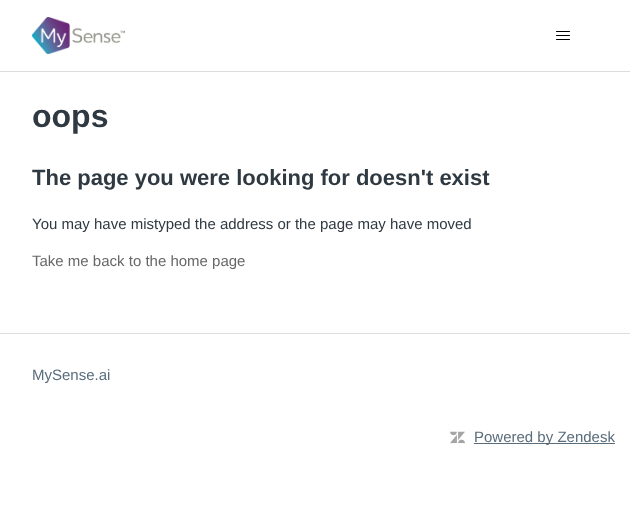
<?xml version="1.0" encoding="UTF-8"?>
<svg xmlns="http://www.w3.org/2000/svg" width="630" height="532">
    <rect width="100%" height="100%" fill="#FFFFFF"/>
    <image x="32" y="17" width="93" height="37" href="img_01.png"/>
    <path d="M 556.5 31.5 H 569.5 M 556.5 35.5 H 569.5 M 556.5 39.5 H 569.5" fill="none" stroke="#000000" stroke-linecap="round"/>
    <rect x="0" y="71" width="630" height="1" fill="#DDDDDD"/>
    <text x="32" y="127" font-family="Liberation Sans" font-size="32" font-weight="700" fill="#2F3941">oops</text>
    <text x="32" y="185" font-family="Liberation Sans" font-size="22" font-weight="700" fill="#2F3941">The page you were looking for doesn't exist</text>
    <text x="32" y="229" font-family="Liberation Sans" font-size="15" fill="#2F3941">You may have mistyped the address or the page may have moved</text>
    <text x="32" y="266" font-family="Liberation Sans" font-size="15" fill="#676767">Take me back to the home page</text>
    <rect x="0" y="333" width="630" height="1" fill="#DDDDDD"/>
    <text x="32" y="380" font-family="Liberation Sans" font-size="15" fill="#5A6D7C">MySense.ai</text>
    <image x="450" y="431" width="15" height="13" href="img_02.png"/>
    <rect x="474" y="443" width="141" height="1" fill="#5A6D7C"/>
    <text x="474" y="442" font-family="Liberation Sans" font-size="15" fill="#5A6D7C">Powered by Zendesk</text>
</svg>
